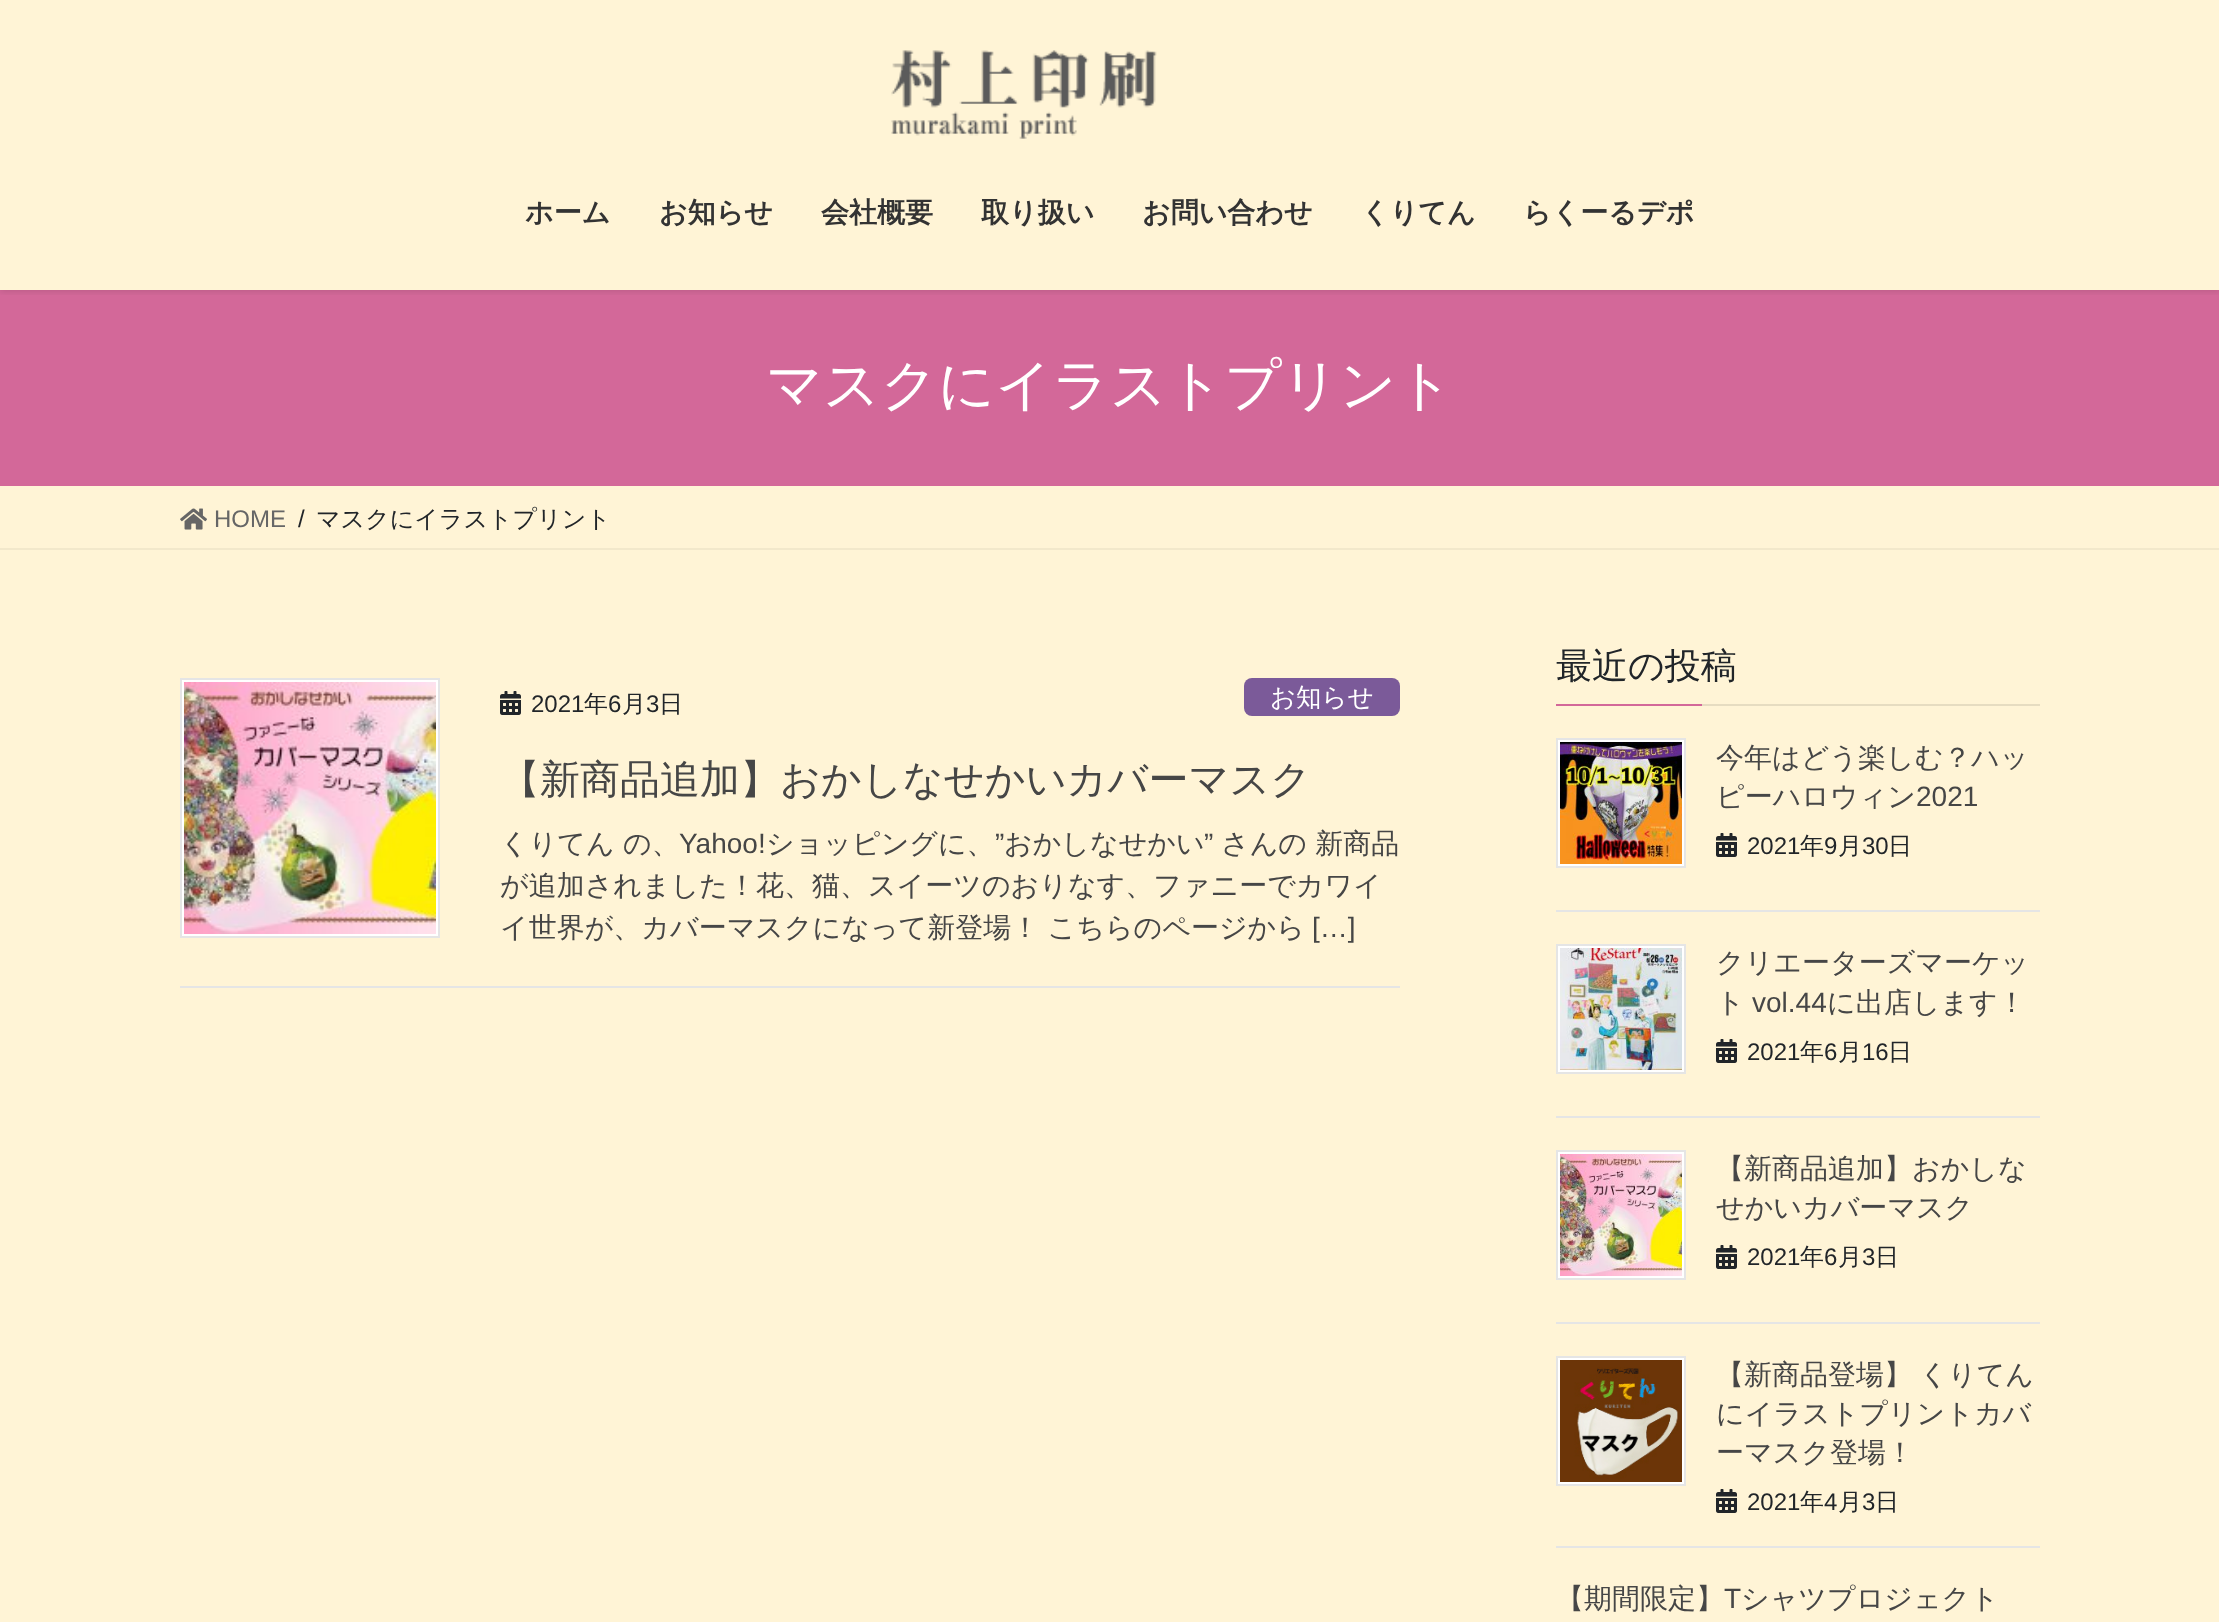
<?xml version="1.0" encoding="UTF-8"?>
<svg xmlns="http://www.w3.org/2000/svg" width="2219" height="1622">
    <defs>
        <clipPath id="clip1"><rect x="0" y="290" width="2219" height="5"/></clipPath>
        <filter id="blur1" x="-50%" y="-200%" width="200%" height="500%"><feGaussianBlur stdDeviation="3"/></filter>
    </defs>
    <rect width="100%" height="100%" fill="#FFF4D6"/>
    <rect x="0" y="290" width="2219" height="196" fill="#D36899"/>
    <g clip-path="url(#clip1)">
        <rect x="0" y="2" width="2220" height="290" fill="#000000" fill-opacity="0.1" filter="url(#blur1)"/>
    </g>
    <image x="891" y="50" width="266" height="89" href="img_01.png"/>
    <text x="525" y="222" font-family="WenQuanYi Zen Hei" font-size="28" font-weight="700" fill="#333333">ホーム</text>
    <text x="659" y="222" font-family="WenQuanYi Zen Hei" font-size="28" font-weight="700" fill="#333333">お知らせ</text>
    <text x="821" y="222" font-family="WenQuanYi Zen Hei" font-size="28" font-weight="700" fill="#333333">会社概要</text>
    <text x="981" y="222" font-family="WenQuanYi Zen Hei" font-size="28" font-weight="700" fill="#333333">取り扱い</text>
    <text x="1142" y="222" font-family="WenQuanYi Zen Hei" font-size="28" font-weight="700" fill="#333333">お問い合わせ</text>
    <text x="1361" y="222" font-family="WenQuanYi Zen Hei" font-size="28" font-weight="700" fill="#333333">くりてん</text>
    <text x="1523" y="222" font-family="WenQuanYi Zen Hei" font-size="28" font-weight="700" fill="#333333">らくーるデポ</text>
    <text x="766" y="404" font-family="WenQuanYi Zen Hei" font-size="56" font-weight="500" fill="#FFFFFF">マスクにイラストプリント</text>
    <rect x="0" y="548" width="2219" height="2" fill="#F2E8CB"/>
    <image x="180" y="508" width="27" height="22" href="img_02.png"/>
    <text x="214" y="527" font-family="Liberation Sans" font-size="24" fill="#666666">HOME</text>
    <text x="298" y="527" font-family="Liberation Sans" font-size="24" fill="#212529">/</text>
    <text x="316" y="527" font-family="WenQuanYi Zen Hei" font-size="24" font-weight="500" fill="#212529">マスクにイラストプリント</text>
    <rect x="180" y="986" width="1220" height="2" fill="#E5E5E5"/>
    <rect x="181" y="679" width="258" height="258" fill="none" stroke="#E5E5E5" stroke-width="2"/>
    <rect x="183" y="681" width="254" height="254" fill="none" stroke="#FFFFFF" stroke-width="2"/>
    <image x="184" y="682" width="252" height="252" href="img_03.png"/>
    <image x="500" y="691" width="21" height="24" href="img_04.png"/>
    <text x="531" y="712" font-family="Liberation Sans" font-size="24" fill="#212529">2021</text>
    <text x="584" y="712" font-family="WenQuanYi Zen Hei" font-size="24" font-weight="500" fill="#212529">年</text>
    <text x="608" y="712" font-family="Liberation Sans" font-size="24" fill="#212529">6</text>
    <text x="622" y="712" font-family="WenQuanYi Zen Hei" font-size="24" font-weight="500" fill="#212529">月</text>
    <text x="646" y="712" font-family="Liberation Sans" font-size="24" fill="#212529">3</text>
    <text x="659" y="712" font-family="WenQuanYi Zen Hei" font-size="24" font-weight="500" fill="#212529">日</text>
    <rect x="1244" y="678" width="156" height="38" rx="8" fill="#7B5A99"/>
    <text x="1270" y="706" font-family="WenQuanYi Zen Hei" font-size="25.5" font-weight="500" fill="#FFFFFF">お知らせ</text>
    <text x="500" y="793" font-family="WenQuanYi Zen Hei" font-size="40" font-weight="500" fill="#464646">【新商品追加】おかしなせかいカバーマスク</text>
    <text x="500" y="853" font-family="WenQuanYi Zen Hei" font-size="28" font-weight="500" fill="#464646">くりてん の、</text>
    <text x="679" y="853" font-family="Liberation Sans" font-size="28" fill="#464646">Yahoo!</text>
    <text x="766" y="853" font-family="WenQuanYi Zen Hei" font-size="28" font-weight="500" fill="#464646">ショッピングに、</text>
    <text x="995" y="853" font-family="Liberation Sans" font-size="28" fill="#464646">”</text>
    <text x="1004" y="853" font-family="WenQuanYi Zen Hei" font-size="28" font-weight="500" fill="#464646">おかしなせかい</text>
    <text x="1204" y="853" font-family="Liberation Sans" font-size="28" fill="#464646">”</text>
    <text x="1221" y="853" font-family="WenQuanYi Zen Hei" font-size="28" font-weight="500" fill="#464646">さんの 新商品</text>
    <text font-family="WenQuanYi Zen Hei" font-size="28" font-weight="500" fill="#464646">
        <tspan x="500" y="895">が追加されました！花、猫、スイーツのおりなす、ファニーでカワイ</tspan>
        <tspan x="500" y="937">イ世界が、カバーマスクになって新登場！ こちらのページから</tspan>
    </text>
    <text x="1312" y="937" font-family="Liberation Sans" font-size="28" fill="#464646">[…]</text>
    <rect x="1702" y="704" width="338" height="2" fill="#E6DCC1"/>
    <text x="1556" y="678" font-family="WenQuanYi Zen Hei" font-size="36" font-weight="500" fill="#212529">最近の投稿</text>
    <rect x="1556" y="704" width="146" height="2" fill="#D36899"/>
    <rect x="1556" y="910" width="484" height="2" fill="#E5E5E5"/>
    <rect x="1557" y="739" width="128" height="128" fill="none" stroke="#E5E5E5" stroke-width="2"/>
    <rect x="1559" y="741" width="124" height="124" fill="none" stroke="#FFFFFF" stroke-width="2"/>
    <image x="1560" y="742" width="122" height="122" href="img_05.png"/>
    <text font-family="WenQuanYi Zen Hei" font-size="28" font-weight="500" fill="#464646">
        <tspan x="1716" y="767">今年はどう楽しむ？ハッ</tspan>
        <tspan x="1716" y="806">ピーハロウィン</tspan>
    </text>
    <text x="1916" y="806" font-family="Liberation Sans" font-size="28" fill="#464646">2021</text>
    <image x="1716" y="833" width="21" height="24" href="img_04.png"/>
    <text x="1747" y="854" font-family="Liberation Sans" font-size="24" fill="#212529">2021</text>
    <text x="1800" y="854" font-family="WenQuanYi Zen Hei" font-size="24" font-weight="500" fill="#212529">年</text>
    <text x="1824" y="854" font-family="Liberation Sans" font-size="24" fill="#212529">9</text>
    <text x="1838" y="854" font-family="WenQuanYi Zen Hei" font-size="24" font-weight="500" fill="#212529">月</text>
    <text x="1862" y="854" font-family="Liberation Sans" font-size="24" fill="#212529">30</text>
    <text x="1888" y="854" font-family="WenQuanYi Zen Hei" font-size="24" font-weight="500" fill="#212529">日</text>
    <rect x="1556" y="1116" width="484" height="2" fill="#E5E5E5"/>
    <rect x="1557" y="945" width="128" height="128" fill="none" stroke="#E5E5E5" stroke-width="2"/>
    <rect x="1559" y="947" width="124" height="124" fill="none" stroke="#FFFFFF" stroke-width="2"/>
    <image x="1560" y="948" width="122" height="122" href="img_06.png"/>
    <text font-family="WenQuanYi Zen Hei" font-size="28" font-weight="500" fill="#464646">
        <tspan x="1716" y="972">クリエーターズマーケッ</tspan>
        <tspan x="1716" y="1012">ト</tspan>
    </text>
    <text x="1752" y="1012" font-family="Liberation Sans" font-size="28" fill="#464646">vol.44</text>
    <text x="1827" y="1012" font-family="WenQuanYi Zen Hei" font-size="28" font-weight="500" fill="#464646">に出店します！</text>
    <image x="1716" y="1039" width="21" height="24" href="img_04.png"/>
    <text x="1747" y="1060" font-family="Liberation Sans" font-size="24" fill="#212529">2021</text>
    <text x="1800" y="1060" font-family="WenQuanYi Zen Hei" font-size="24" font-weight="500" fill="#212529">年</text>
    <text x="1824" y="1060" font-family="Liberation Sans" font-size="24" fill="#212529">6</text>
    <text x="1838" y="1060" font-family="WenQuanYi Zen Hei" font-size="24" font-weight="500" fill="#212529">月</text>
    <text x="1862" y="1060" font-family="Liberation Sans" font-size="24" fill="#212529">16</text>
    <text x="1888" y="1060" font-family="WenQuanYi Zen Hei" font-size="24" font-weight="500" fill="#212529">日</text>
    <rect x="1556" y="1322" width="484" height="2" fill="#E5E5E5"/>
    <rect x="1557" y="1151" width="128" height="128" fill="none" stroke="#E5E5E5" stroke-width="2"/>
    <rect x="1559" y="1153" width="124" height="124" fill="none" stroke="#FFFFFF" stroke-width="2"/>
    <image x="1560" y="1154" width="122" height="122" href="img_07.png"/>
    <text font-family="WenQuanYi Zen Hei" font-size="28" font-weight="500" fill="#464646">
        <tspan x="1716" y="1178">【新商品追加】おかしな</tspan>
        <tspan x="1716" y="1217">せかいカバーマスク</tspan>
    </text>
    <image x="1716" y="1245" width="21" height="24" href="img_04.png"/>
    <text x="1747" y="1265" font-family="Liberation Sans" font-size="24" fill="#212529">2021</text>
    <text x="1800" y="1265" font-family="WenQuanYi Zen Hei" font-size="24" font-weight="500" fill="#212529">年</text>
    <text x="1824" y="1265" font-family="Liberation Sans" font-size="24" fill="#212529">6</text>
    <text x="1838" y="1265" font-family="WenQuanYi Zen Hei" font-size="24" font-weight="500" fill="#212529">月</text>
    <text x="1862" y="1265" font-family="Liberation Sans" font-size="24" fill="#212529">3</text>
    <text x="1875" y="1265" font-family="WenQuanYi Zen Hei" font-size="24" font-weight="500" fill="#212529">日</text>
    <rect x="1556" y="1546" width="484" height="2" fill="#E5E5E5"/>
    <rect x="1557" y="1357" width="128" height="128" fill="none" stroke="#E5E5E5" stroke-width="2"/>
    <rect x="1559" y="1359" width="124" height="124" fill="none" stroke="#FFFFFF" stroke-width="2"/>
    <image x="1560" y="1360" width="122" height="122" href="img_08.png"/>
    <text font-family="WenQuanYi Zen Hei" font-size="28" font-weight="500" fill="#464646">
        <tspan x="1716" y="1384" word-spacing="-1">【新商品登場】 くりてん</tspan>
        <tspan x="1716" y="1423">にイラストプリントカバ</tspan>
        <tspan x="1716" y="1462">ーマスク登場！</tspan>
    </text>
    <image x="1716" y="1489" width="21" height="24" href="img_04.png"/>
    <text x="1747" y="1510" font-family="Liberation Sans" font-size="24" fill="#212529">2021</text>
    <text x="1800" y="1510" font-family="WenQuanYi Zen Hei" font-size="24" font-weight="500" fill="#212529">年</text>
    <text x="1824" y="1510" font-family="Liberation Sans" font-size="24" fill="#212529">4</text>
    <text x="1838" y="1510" font-family="WenQuanYi Zen Hei" font-size="24" font-weight="500" fill="#212529">月</text>
    <text x="1862" y="1510" font-family="Liberation Sans" font-size="24" fill="#212529">3</text>
    <text x="1875" y="1510" font-family="WenQuanYi Zen Hei" font-size="24" font-weight="500" fill="#212529">日</text>
    <text x="1556" y="1608" font-family="WenQuanYi Zen Hei" font-size="28" font-weight="500" fill="#464646">【期間限定】</text>
    <text x="1724" y="1608" font-family="Liberation Sans" font-size="28" fill="#464646">T</text>
    <text x="1741" y="1608" font-family="WenQuanYi Zen Hei" font-size="28" font-weight="500" fill="#464646">シャツプロジェクト</text>
</svg>
